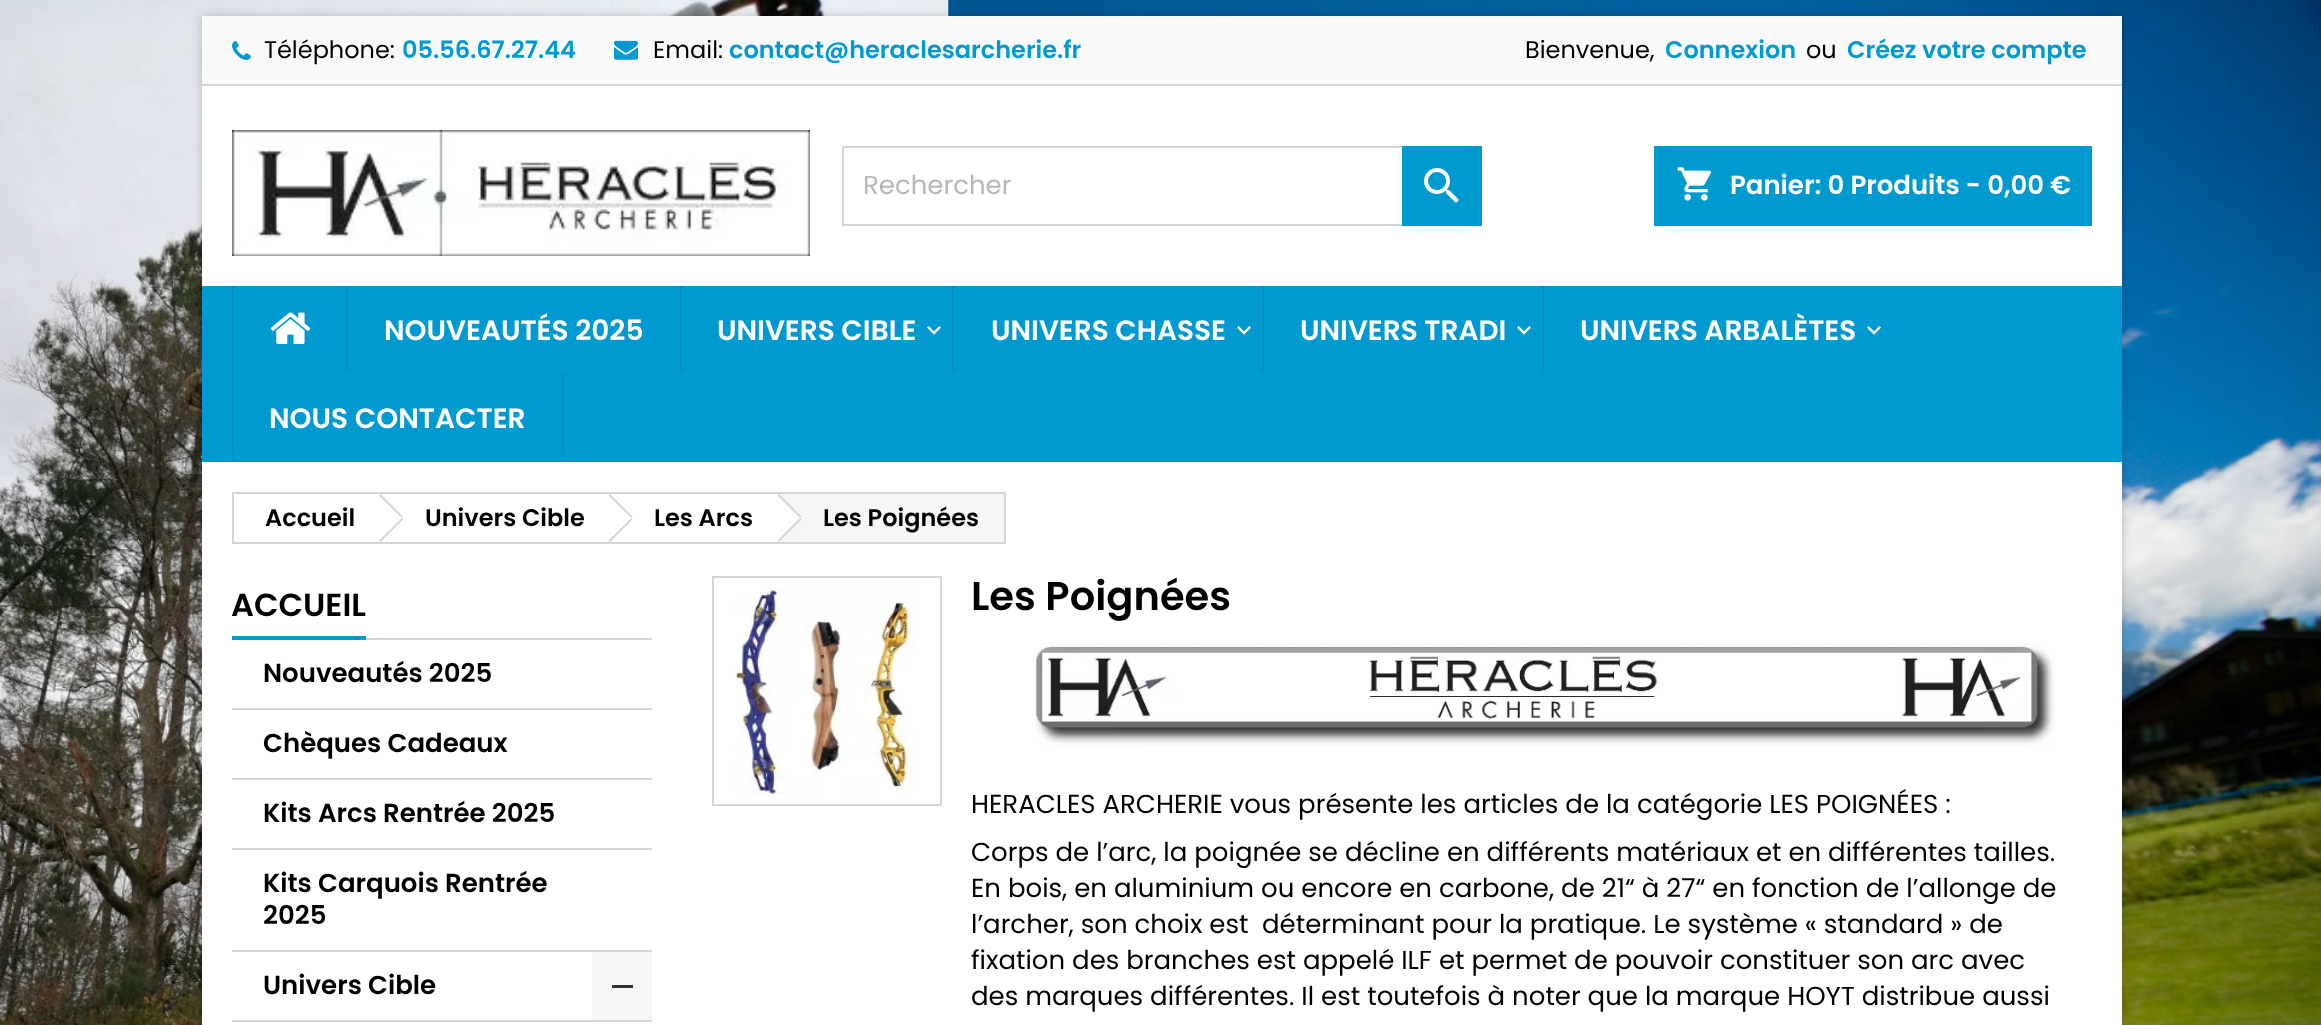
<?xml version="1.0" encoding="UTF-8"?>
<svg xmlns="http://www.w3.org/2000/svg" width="2321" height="1025">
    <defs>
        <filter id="blur1" x="-50%" y="-200%" width="200%" height="500%"><feGaussianBlur stdDeviation="4"/></filter>
    </defs>
    <rect width="100%" height="100%" fill="#FFFFFF"/>
    <image x="0" y="0" width="2321" height="1025" href="img_01.png"/>
    <rect x="202" y="16" width="1920" height="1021" fill="#000000" fill-opacity="0.2" filter="url(#blur1)"/>
    <rect x="202" y="86" width="1920" height="939" fill="#FFFFFF"/>
    <rect x="202" y="16" width="1920" height="68" fill="#F9F9F9"/>
    <rect x="202" y="84" width="1920" height="2" fill="#D6D4D4"/>
    <image x="232" y="41" width="19" height="19" href="img_02.png"/>
    <text x="264" y="58" font-family="Poppins" font-size="24" fill="#000000">Téléphone:</text>
    <text x="402" y="58" font-family="Poppins" font-size="24" font-weight="600" fill="#009AD0">05.56.67.27.44</text>
    <image x="614" y="40" width="24" height="20" href="img_03.png"/>
    <text x="653" y="58" font-family="Poppins" font-size="24" fill="#000000">Email:</text>
    <text x="729" y="58" font-family="Poppins" font-size="24" font-weight="600" fill="#009AD0">contact@heraclesarcherie.fr</text>
    <text x="1525" y="58" font-family="Poppins" font-size="24" fill="#000000">Bienvenue,</text>
    <text x="1665" y="58" font-family="Poppins" font-size="24" font-weight="600" fill="#009AD0">Connexion</text>
    <text x="1806" y="58" font-family="Poppins" font-size="24" fill="#000000">ou</text>
    <text x="1847" y="58" font-family="Poppins" font-size="24" font-weight="600" fill="#009AD0">Créez votre compte</text>
    <image x="232" y="130" width="578" height="126" href="img_04.png"/>
    <rect x="843" y="147" width="638" height="78" fill="none" stroke="#D6D4D4" stroke-width="2"/>
    <text x="863" y="194" font-family="Poppins" font-size="26" fill="#B7B7B7">Rechercher</text>
    <rect x="1402" y="146" width="80" height="80" fill="#009AD0"/>
    <image x="1424" y="168" width="35" height="35" href="img_05.png"/>
    <rect x="1654" y="146" width="438" height="80" fill="#009AD0"/>
    <image x="1677" y="167" width="34" height="34" href="img_06.png"/>
    <text x="1730" y="194" font-family="Poppins" font-size="26" font-weight="600" fill="#FFFFFF">Panier: 0 Produits - 0,00 €</text>
    <rect x="202" y="286" width="1920" height="176" fill="#009AD0"/>
    <rect x="232" y="286" width="2" height="176" fill="#008BBB"/>
    <image x="270" y="312" width="41" height="32" href="img_07.png"/>
    <rect x="346" y="286" width="2" height="88" fill="#008BBB"/>
    <text x="384" y="340" font-family="Poppins" font-size="28" font-weight="600" fill="#FFFFFF">NOUVEAUTÉS 2025</text>
    <rect x="680" y="286" width="2" height="88" fill="#008BBB"/>
    <text x="717" y="340" font-family="Poppins" font-size="28" font-weight="600" fill="#FFFFFF">UNIVERS CIBLE</text>
    <image x="927" y="326" width="14" height="9" href="img_08.png"/>
    <rect x="952" y="286" width="2" height="88" fill="#008BBB"/>
    <text x="991" y="340" font-family="Poppins" font-size="28" font-weight="600" fill="#FFFFFF">UNIVERS CHASSE</text>
    <image x="1237" y="326" width="14" height="9" href="img_08.png"/>
    <rect x="1262" y="286" width="2" height="88" fill="#008BBB"/>
    <text x="1300" y="340" font-family="Poppins" font-size="28" font-weight="600" fill="#FFFFFF">UNIVERS TRADI</text>
    <image x="1517" y="326" width="14" height="9" href="img_08.png"/>
    <rect x="1542" y="286" width="2" height="88" fill="#008BBB"/>
    <text x="1580" y="340" font-family="Poppins" font-size="28" font-weight="600" fill="#FFFFFF">UNIVERS ARBALÈTES</text>
    <image x="1867" y="326" width="14" height="9" href="img_08.png"/>
    <rect x="562" y="374" width="2" height="88" fill="#008BBB"/>
    <text x="269" y="428" font-family="Poppins" font-size="28" font-weight="600" fill="#FFFFFF">NOUS CONTACTER</text>
    <rect x="233" y="493" width="772" height="50" fill="none" stroke="#D6D4D4" stroke-width="2"/>
    <text x="265" y="526" font-family="Poppins" font-size="24" font-weight="600" fill="#000000">Accueil</text>
    <path d="M 380.5 494 L 403 516.5 L 402 518 L 379 495.5 Z M 402 518 L 403 519.5 L 380.5 542 L 379 540.5 Z" fill="#D6D4D4"/>
    <text x="425" y="526" font-family="Poppins" font-size="24" font-weight="600" fill="#000000">Univers Cible</text>
    <path d="M 610 494 L 632.5 516.5 L 631.5 518 L 608.5 495.5 Z M 631.5 518 L 632.5 519.5 L 610 542 L 608.5 540.5 Z" fill="#D6D4D4"/>
    <text x="654" y="526" font-family="Poppins" font-size="24" font-weight="600" fill="#000000">Les Arcs</text>
    <rect x="780" y="494" width="224" height="48" fill="#F6F6F6"/>
    <path d="M 780 495 L 800 515 C 802 517 802 519 800 521 L 780 541 C 779 542 776 542 775 541 L 755 521 C 753 519 753 517 755 515 L 775 495 C 776 494 779 494 780 495 Z" fill="#FFFFFF"/>
    <path d="M 779 494 L 801.5 516.5 L 800 518 L 777.5 495.5 Z M 800 518 L 801.5 519.5 L 779 542 L 777.5 540.5 Z" fill="#D6D4D4"/>
    <text x="823" y="526" font-family="Poppins" font-size="24" font-weight="600" fill="#000000">Les Poignées</text>
    <rect x="366" y="638" width="286" height="2" fill="#D6D4D4"/>
    <rect x="232" y="636" width="134" height="4" fill="#009AD0"/>
    <text x="231" y="616" font-family="Poppins" font-size="32" font-weight="600" fill="#000000">ACCUEIL</text>
    <rect x="232" y="708" width="420" height="2" fill="#D6D4D4"/>
    <text x="263" y="682" font-family="Poppins" font-size="26" font-weight="600" fill="#000000">Nouveautés 2025</text>
    <rect x="232" y="778" width="420" height="2" fill="#D6D4D4"/>
    <text x="263" y="752" font-family="Poppins" font-size="26" font-weight="600" fill="#000000">Chèques Cadeaux</text>
    <rect x="232" y="848" width="420" height="2" fill="#D6D4D4"/>
    <text x="263" y="822" font-family="Poppins" font-size="26" font-weight="600" fill="#000000">Kits Arcs Rentrée 2025</text>
    <rect x="232" y="950" width="420" height="2" fill="#D6D4D4"/>
    <text font-family="Poppins" font-size="26" font-weight="600" fill="#000000">
        <tspan x="263" y="892">Kits Carquois Rentrée</tspan>
        <tspan x="263" y="924">2025</tspan>
    </text>
    <rect x="232" y="1020" width="420" height="2" fill="#D6D4D4"/>
    <text x="263" y="994" font-family="Poppins" font-size="26" font-weight="600" fill="#000000">Univers Cible</text>
    <rect x="592" y="952" width="60" height="68" fill="#F6F6F6"/>
    <rect x="612" y="985" width="21" height="3" fill="#333333"/>
    <rect x="713" y="577" width="228" height="228" fill="none" stroke="#D6D4D4" stroke-width="2"/>
    <image x="734" y="586" width="180" height="209" href="img_09.png"/>
    <text x="971" y="610" font-family="Poppins" font-size="40" font-weight="600" fill="#000000">Les Poignées</text>
    <image x="1035" y="643" width="1021" height="103" href="img_10.png"/>
    <text font-family="Poppins" font-size="26" fill="#000000">
        <tspan x="971" y="813">HERACLES ARCHERIE vous présente les articles de la catégorie LES POIGNÉES :</tspan>
        <tspan x="971" y="861">Corps de l’arc, la poignée se décline en différents matériaux et en différentes tailles.</tspan>
        <tspan x="971" y="897">En bois, en aluminium ou encore en carbone, de 21“ à 27“ en fonction de l’allonge de</tspan>
        <tspan x="971" y="933">l’archer, son choix est</tspan>
    </text>
    <text x="1262" y="933" font-family="Poppins" font-size="26" fill="#000000">déterminant pour la pratique. Le système « standard » de</text>
    <text font-family="Poppins" font-size="26" fill="#000000">
        <tspan x="971" y="969">fixation des branches est appelé ILF et permet de pouvoir constituer son arc avec</tspan>
        <tspan x="971" y="1005">des marques différentes. Il est toutefois à noter que la marque HOYT distribue aussi</tspan>
    </text>
</svg>
